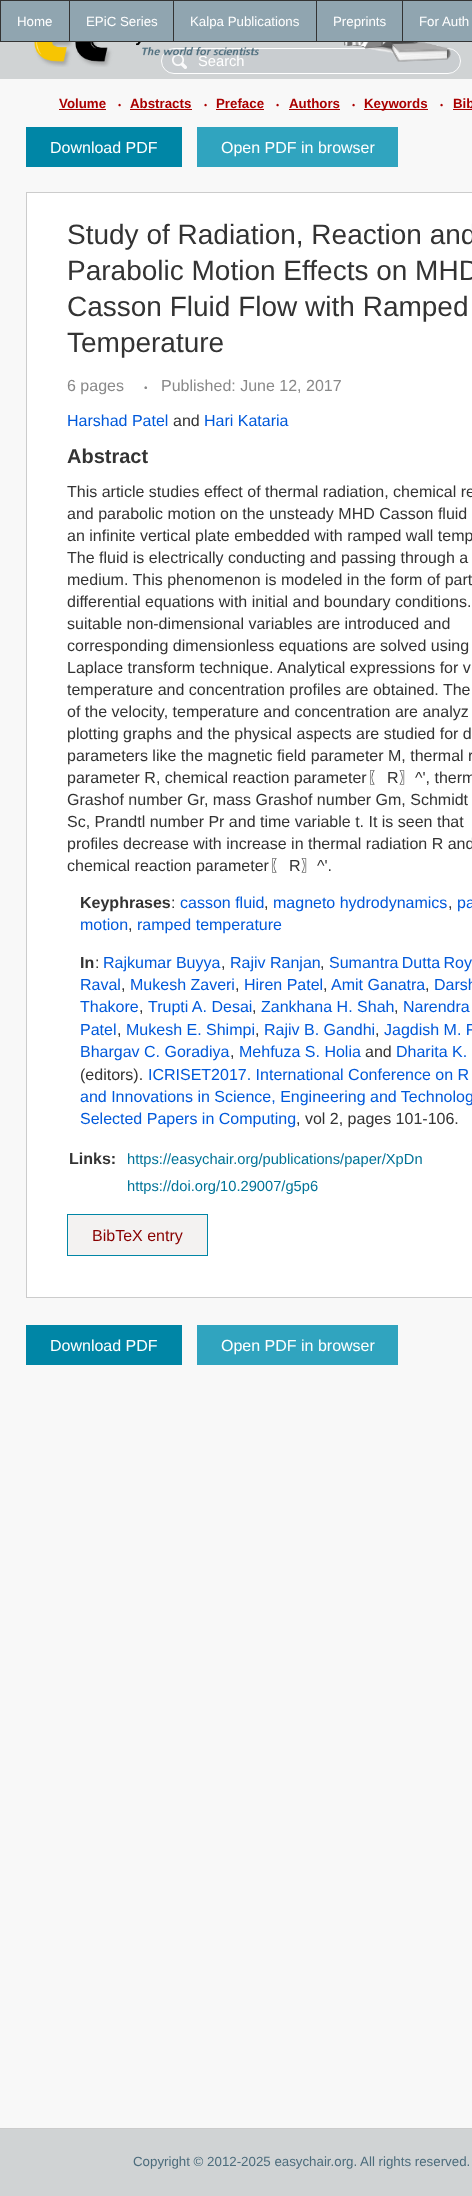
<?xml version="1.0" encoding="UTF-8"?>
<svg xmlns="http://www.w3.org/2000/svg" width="472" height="2196">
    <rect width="100%" height="100%" fill="#D0D3D4"/>
    <rect x="402" y="0" width="70" height="1" fill="#333333"/>
    <rect x="402" y="41" width="70" height="1" fill="#333333"/>
    <rect x="402" y="0" width="1" height="42" fill="#333333"/>
    <rect x="316" y="0" width="87" height="1" fill="#333333"/>
    <rect x="316" y="41" width="87" height="1" fill="#333333"/>
    <rect x="316" y="0" width="1" height="42" fill="#333333"/>
    <rect x="173" y="0" width="144" height="1" fill="#333333"/>
    <rect x="173" y="41" width="144" height="1" fill="#333333"/>
    <rect x="173" y="0" width="1" height="42" fill="#333333"/>
    <rect x="69" y="0" width="105" height="1" fill="#333333"/>
    <rect x="69" y="41" width="105" height="1" fill="#333333"/>
    <rect x="69" y="0" width="1" height="42" fill="#333333"/>
    <rect x="0" y="0" width="70" height="1" fill="#333333"/>
    <rect x="0" y="41" width="70" height="1" fill="#333333"/>
    <rect x="0" y="0" width="1" height="42" fill="#333333"/>
    <rect x="1" y="1" width="68" height="40" fill="#90A5B0"/>
    <text x="17" y="26" font-family="Liberation Sans" font-size="13.3" fill="#FFFFFF">Home</text>
    <rect x="70" y="1" width="103" height="40" fill="#90A5B0"/>
    <text x="86" y="26" font-family="Liberation Sans" font-size="13.3" fill="#FFFFFF">EPiC Series</text>
    <rect x="174" y="1" width="142" height="40" fill="#90A5B0"/>
    <text x="190" y="26" font-family="Liberation Sans" font-size="13.3" fill="#FFFFFF">Kalpa Publications</text>
    <rect x="317" y="1" width="85" height="40" fill="#90A5B0"/>
    <text x="333" y="26" font-family="Liberation Sans" font-size="13.3" fill="#FFFFFF">Preprints</text>
    <rect x="403" y="1" width="69" height="40" fill="#90A5B0"/>
    <text x="419" y="26" font-family="Liberation Sans" font-size="13.3" fill="#FFFFFF">For Auth</text>
    <rect x="161" y="48" width="300" height="26" rx="13" fill="#C9CDD0"/>
    <image x="172" y="54" width="15" height="15" href="img_03.png"/>
    <rect x="161.5" y="48.5" width="299" height="25" rx="12.5" fill="none" stroke="#FFFFFF"/>
    <text x="198" y="66" font-family="Liberation Sans" font-size="14.7" fill="#FFFFFF">Search</text>
    <image x="34" y="42" width="225" height="25" href="img_01.png"/>
    <image x="344" y="42" width="107" height="20" href="img_02.png"/>
    <rect x="0" y="79" width="472" height="2049" fill="#F8F8F8"/>
    <text x="59" y="108" font-family="Liberation Sans" font-size="13.3" font-weight="700" fill="#AA0000">Volume</text>
    <rect x="59" y="109" width="47" height="1" fill="#AA0000"/>
    <text x="118" y="108" font-family="Liberation Sans" font-size="9" fill="#AA0000">•</text>
    <text x="130" y="108" font-family="Liberation Sans" font-size="13.3" font-weight="700" fill="#AA0000">Abstracts</text>
    <rect x="130" y="109" width="62" height="1" fill="#AA0000"/>
    <text x="204" y="108" font-family="Liberation Sans" font-size="9" fill="#AA0000">•</text>
    <text x="216" y="108" font-family="Liberation Sans" font-size="13.3" font-weight="700" fill="#AA0000">Preface</text>
    <rect x="216" y="109" width="48" height="1" fill="#AA0000"/>
    <text x="276" y="108" font-family="Liberation Sans" font-size="9" fill="#AA0000">•</text>
    <text x="289" y="108" font-family="Liberation Sans" font-size="13.3" font-weight="700" fill="#AA0000">Authors</text>
    <rect x="289" y="109" width="51" height="1" fill="#AA0000"/>
    <text x="352" y="108" font-family="Liberation Sans" font-size="9" fill="#AA0000">•</text>
    <rect x="364" y="109" width="64" height="1" fill="#AA0000"/>
    <text x="364" y="108" font-family="Liberation Sans" font-size="13.3" font-weight="700" fill="#AA0000">Keywords</text>
    <text x="440" y="108" font-family="Liberation Sans" font-size="9" fill="#AA0000">•</text>
    <text x="453" y="108" font-family="Liberation Sans" font-size="13.3" font-weight="700" fill="#AA0000">Bib</text>
    <rect x="453" y="109" width="19" height="1" fill="#AA0000"/>
    <rect x="26" y="127" width="156" height="40" fill="#0086A6"/>
    <text x="50" y="153" font-family="Liberation Sans" font-size="16" fill="#FFFFFF">Download PDF</text>
    <rect x="197" y="127" width="201" height="40" fill="#30A4BF"/>
    <text x="221" y="153" font-family="Liberation Sans" font-size="16" fill="#FFFFFF">Open PDF in browser</text>
    <rect x="26.5" y="192.5" width="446" height="1105" fill="#FFFFFF" stroke="#CCCCCC"/>
    <text font-family="Liberation Sans" font-size="28" fill="#333333">
        <tspan x="67" y="244">Study of Radiation, Reaction and</tspan>
        <tspan x="67" y="280">Parabolic Motion Effects on MHD</tspan>
        <tspan x="67" y="316">Casson Fluid Flow with Ramped</tspan>
        <tspan x="67" y="352">Temperature</tspan>
    </text>
    <text x="67" y="391" font-family="Liberation Sans" font-size="16" fill="#898989">6 pages</text>
    <text x="144" y="391" font-family="Liberation Sans" font-size="10" fill="#898989">•</text>
    <text x="161" y="391" font-family="Liberation Sans" font-size="16" fill="#898989">Published: June 12, 2017</text>
    <text x="67" y="426" font-family="Liberation Sans" font-size="16" fill="#0059DB">Harshad Patel</text>
    <text x="173" y="426" font-family="Liberation Sans" font-size="16" fill="#333333">and</text>
    <text x="204" y="426" font-family="Liberation Sans" font-size="16" fill="#0059DB">Hari Kataria</text>
    <text x="67" y="463" font-family="Liberation Sans" font-size="20" font-weight="700" fill="#333333">Abstract</text>
    <text font-family="Liberation Sans" font-size="16" fill="#333333">
        <tspan x="67" y="497">This article studies effect of thermal radiation, chemical re</tspan>
        <tspan x="67" y="519">and parabolic motion on the unsteady MHD Casson fluid</tspan>
        <tspan x="67" y="541">an infinite vertical plate embedded with ramped wall temp</tspan>
        <tspan x="67" y="563">The fluid is electrically conducting and passing through a</tspan>
        <tspan x="67" y="585">medium. This phenomenon is modeled in the form of part</tspan>
        <tspan x="67" y="607">differential equations with initial and boundary conditions.</tspan>
        <tspan x="67" y="629">suitable non-dimensional variables are introduced and</tspan>
        <tspan x="67" y="651">corresponding dimensionless equations are solved using</tspan>
        <tspan x="67" y="673">Laplace transform technique. Analytical expressions for v</tspan>
        <tspan x="67" y="695">temperature and concentration profiles are obtained. The</tspan>
        <tspan x="67" y="717">of the velocity, temperature and concentration are analyz</tspan>
        <tspan x="67" y="739">plotting graphs and the physical aspects are studied for d</tspan>
        <tspan x="67" y="761">parameters like the magnetic field parameter M, thermal r</tspan>
        <tspan x="67" y="783">parameter R, chemical reaction parameter</tspan>
    </text>
    <text x="367" y="783" font-family="WenQuanYi Zen Hei" font-size="16" font-weight="500" fill="#333333">〖</text>
    <text x="387" y="783" font-family="Liberation Sans" font-size="16" fill="#333333">R</text>
    <text x="399" y="783" font-family="WenQuanYi Zen Hei" font-size="16" font-weight="500" fill="#333333">〗</text>
    <text x="415" y="783" font-family="Liberation Sans" font-size="16" fill="#333333">^', therm</text>
    <text font-family="Liberation Sans" font-size="16" fill="#333333">
        <tspan x="67" y="805">Grashof number Gr, mass Grashof number Gm, Schmidt</tspan>
        <tspan x="67" y="827">Sc, Prandtl number Pr and time variable t. It is seen that</tspan>
        <tspan x="67" y="849">profiles decrease with increase in thermal radiation R and</tspan>
        <tspan x="67" y="871">chemical reaction parameter</tspan>
    </text>
    <text x="269" y="871" font-family="WenQuanYi Zen Hei" font-size="16" font-weight="500" fill="#333333">〖</text>
    <text x="289" y="871" font-family="Liberation Sans" font-size="16" fill="#333333">R</text>
    <text x="301" y="871" font-family="WenQuanYi Zen Hei" font-size="16" font-weight="500" fill="#333333">〗</text>
    <text x="317" y="871" font-family="Liberation Sans" font-size="16" fill="#333333">^'.</text>
    <text x="80" y="908" font-family="Liberation Sans" font-size="16" font-weight="700" fill="#333333">Keyphrases</text>
    <text x="171" y="908" font-family="Liberation Sans" font-size="16" fill="#333333">:</text>
    <text x="180" y="908" font-family="Liberation Sans" font-size="16" fill="#0059DB">casson fluid</text>
    <text x="264" y="908" font-family="Liberation Sans" font-size="16" fill="#333333">,</text>
    <text x="273" y="908" font-family="Liberation Sans" font-size="16" fill="#0059DB">magneto hydrodynamics</text>
    <text x="448" y="908" font-family="Liberation Sans" font-size="16" fill="#333333">,</text>
    <text x="457" y="908" font-family="Liberation Sans" font-size="16" fill="#0059DB">pa</text>
    <text x="80" y="930" font-family="Liberation Sans" font-size="16" fill="#0059DB">motion</text>
    <text x="128" y="930" font-family="Liberation Sans" font-size="16" fill="#333333">,</text>
    <text x="137" y="930" font-family="Liberation Sans" font-size="16" fill="#0059DB">ramped temperature</text>
    <text x="80" y="968" font-family="Liberation Sans" font-size="16" font-weight="700" fill="#333333">In</text>
    <text x="95" y="968" font-family="Liberation Sans" font-size="16" fill="#333333">:</text>
    <text x="103" y="968" font-family="Liberation Sans" font-size="16" fill="#0059DB">Rajkumar Buyya</text>
    <text x="230" y="968" font-family="Liberation Sans" font-size="16" fill="#0059DB">Rajiv Ranjan</text>
    <text x="329" y="968" word-spacing="-1" font-family="Liberation Sans" font-size="16" fill="#0059DB">Sumantra Dutta Roy</text>
    <text x="221" y="968" font-family="Liberation Sans" font-size="16" fill="#333333">,</text>
    <text x="320" y="968" font-family="Liberation Sans" font-size="16" fill="#333333">,</text>
    <text x="80" y="990" font-family="Liberation Sans" font-size="16" fill="#0059DB">Raval</text>
    <text x="121" y="990" font-family="Liberation Sans" font-size="16" fill="#333333">,</text>
    <text x="130" y="990" font-family="Liberation Sans" font-size="16" fill="#0059DB">Mukesh Zaveri</text>
    <text x="235" y="990" font-family="Liberation Sans" font-size="16" fill="#333333">,</text>
    <text x="244" y="990" font-family="Liberation Sans" font-size="16" fill="#0059DB">Hiren Patel</text>
    <text x="323" y="990" font-family="Liberation Sans" font-size="16" fill="#333333">,</text>
    <text x="331" y="990" font-family="Liberation Sans" font-size="16" fill="#0059DB">Amit Ganatra</text>
    <text x="425" y="990" font-family="Liberation Sans" font-size="16" fill="#333333">,</text>
    <text x="434" y="990" font-family="Liberation Sans" font-size="16" fill="#0059DB">Darsh</text>
    <text x="80" y="1012" font-family="Liberation Sans" font-size="16" fill="#0059DB">Thakore</text>
    <text x="139" y="1012" font-family="Liberation Sans" font-size="16" fill="#333333">,</text>
    <text x="148" y="1012" font-family="Liberation Sans" font-size="16" fill="#0059DB">Trupti A. Desai</text>
    <text x="252" y="1012" font-family="Liberation Sans" font-size="16" fill="#333333">,</text>
    <text x="261" y="1012" font-family="Liberation Sans" font-size="16" fill="#0059DB">Zankhana H. Shah</text>
    <text x="394" y="1012" font-family="Liberation Sans" font-size="16" fill="#333333">,</text>
    <text x="403" y="1012" font-family="Liberation Sans" font-size="16" fill="#0059DB">Narendra</text>
    <text x="80" y="1035" font-family="Liberation Sans" font-size="16" fill="#0059DB">Patel</text>
    <text x="117" y="1035" font-family="Liberation Sans" font-size="16" fill="#333333">,</text>
    <text x="126" y="1035" font-family="Liberation Sans" font-size="16" fill="#0059DB">Mukesh E. Shimpi</text>
    <text x="255" y="1035" font-family="Liberation Sans" font-size="16" fill="#333333">,</text>
    <text x="264" y="1035" font-family="Liberation Sans" font-size="16" fill="#0059DB">Rajiv B. Gandhi</text>
    <text x="375" y="1035" font-family="Liberation Sans" font-size="16" fill="#333333">,</text>
    <text x="384" y="1035" font-family="Liberation Sans" font-size="16" fill="#0059DB">Jagdish M. R</text>
    <text x="80" y="1057" font-family="Liberation Sans" font-size="16" fill="#0059DB">Bhargav C. Goradiya</text>
    <text x="230" y="1057" font-family="Liberation Sans" font-size="16" fill="#333333">,</text>
    <text x="239" y="1057" font-family="Liberation Sans" font-size="16" fill="#0059DB">Mehfuza S. Holia</text>
    <text x="365" y="1057" font-family="Liberation Sans" font-size="16" fill="#333333">and</text>
    <text x="396" y="1057" font-family="Liberation Sans" font-size="16" fill="#0059DB">Dharita K.</text>
    <text x="80" y="1080" font-family="Liberation Sans" font-size="16" fill="#333333">(editors).</text>
    <text x="148" y="1080" font-family="Liberation Sans" font-size="16" fill="#0059DB">ICRISET2017. International Conference on R</text>
    <text font-family="Liberation Sans" font-size="16" fill="#0059DB">
        <tspan x="80" y="1102">and Innovations in Science, Engineering and Technolog</tspan>
        <tspan x="80" y="1124">Selected Papers in Computing</tspan>
    </text>
    <text x="296" y="1124" font-family="Liberation Sans" font-size="16" fill="#333333">, vol 2, pages 101-106.</text>
    <text x="69" y="1164" font-family="Liberation Sans" font-size="16" font-weight="700" fill="#333333">Links:</text>
    <text font-family="Liberation Sans" font-size="14.7" fill="#007398">
        <tspan x="127" y="1164">https://easychair.org/publications/paper/XpDn</tspan>
        <tspan x="127" y="1191">https://doi.org/10.29007/g5p6</tspan>
    </text>
    <rect x="67.5" y="1214.5" width="140" height="41" fill="#F3F2F1" stroke="#0086A6"/>
    <text x="92" y="1241" font-family="Liberation Sans" font-size="16" fill="#880000">BibTeX entry</text>
    <rect x="26" y="1325" width="156" height="40" fill="#0086A6"/>
    <text x="50" y="1351" font-family="Liberation Sans" font-size="16" fill="#FFFFFF">Download PDF</text>
    <rect x="197" y="1325" width="201" height="40" fill="#30A4BF"/>
    <text x="221" y="1351" font-family="Liberation Sans" font-size="16" fill="#FFFFFF">Open PDF in browser</text>
    <rect x="0" y="2128" width="472" height="1" fill="#CCCCCC"/>
    <text x="133" y="2166" font-family="Liberation Sans" font-size="13.3" fill="#4C6C7C">Copyright © 2012-2025 easychair.org. All rights reserved.</text>
</svg>
